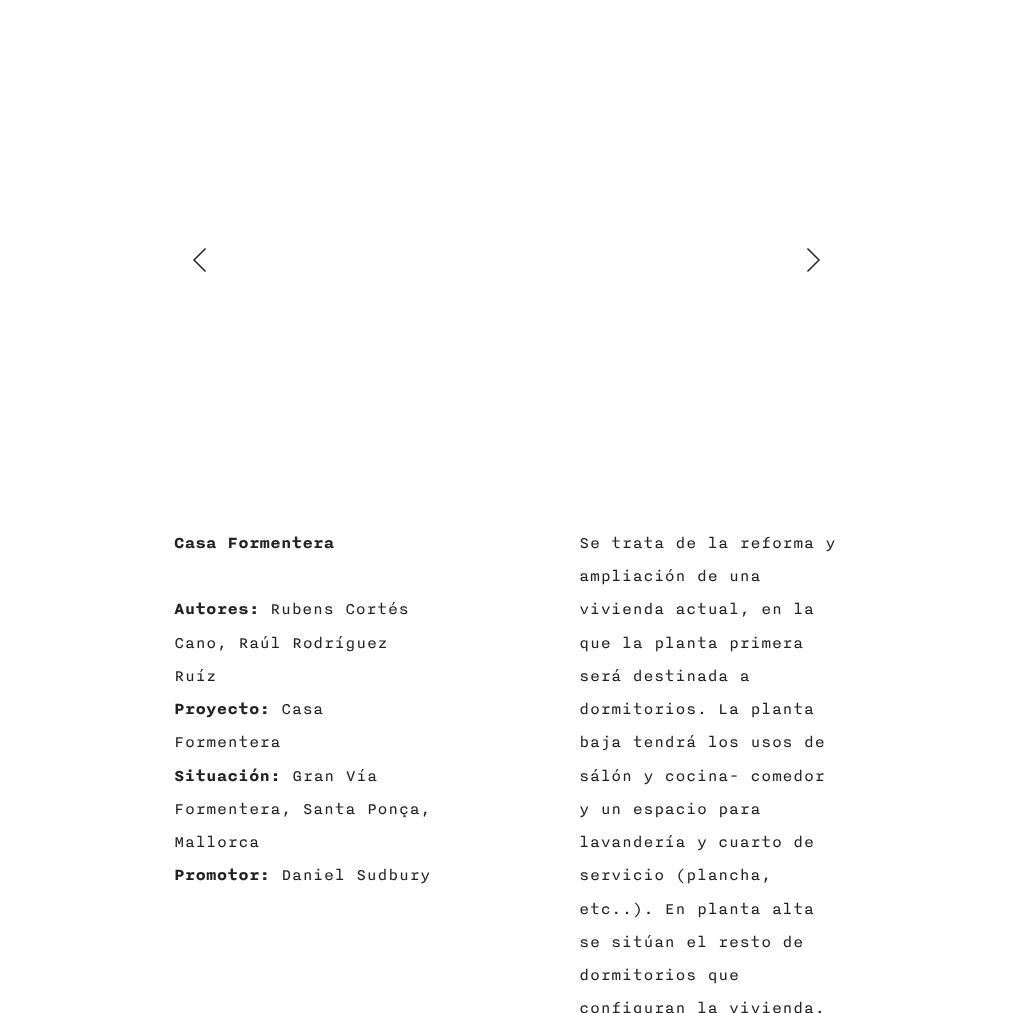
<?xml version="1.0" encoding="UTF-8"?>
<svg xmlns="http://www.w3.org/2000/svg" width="1013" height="1013">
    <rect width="100%" height="100%" fill="#FFFFFF"/>
    <path d="M 205 271 L 194 260 L 205 249" fill="none" stroke="#262626" stroke-width="1.5" stroke-linecap="square"/>
    <path d="M 808 271 L 819 260 L 808 249" fill="none" stroke="#262626" stroke-width="1.5" stroke-linecap="square"/>
    <text x="174" y="548" font-family="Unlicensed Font" font-size="17.5" font-weight="700" letter-spacing="0.2" fill="#222222">Casa Formentera</text>
    <text x="174" y="614" font-family="Unlicensed Font" font-size="17.5" font-weight="700" letter-spacing="0.2" fill="#222222">Autores:</text>
    <text x="270" y="614" font-family="Unlicensed Font" font-size="17.5" letter-spacing="0.2" fill="#222222">Rubens Cortés</text>
    <text font-family="Unlicensed Font" font-size="17.5" letter-spacing="0.2" fill="#222222">
        <tspan x="174" y="648">Cano, Raúl Rodríguez</tspan>
        <tspan x="174" y="681">Ruíz</tspan>
    </text>
    <text x="174" y="714" font-family="Unlicensed Font" font-size="17.5" font-weight="700" letter-spacing="0.2" fill="#222222">Proyecto:</text>
    <text x="281" y="714" font-family="Unlicensed Font" font-size="17.5" letter-spacing="0.2" fill="#222222">Casa</text>
    <text x="174" y="747" font-family="Unlicensed Font" font-size="17.5" letter-spacing="0.2" fill="#222222">Formentera</text>
    <text x="174" y="781" font-family="Unlicensed Font" font-size="17.5" font-weight="700" letter-spacing="0.2" fill="#222222">Situación:</text>
    <text x="292" y="781" font-family="Unlicensed Font" font-size="17.5" letter-spacing="0.2" fill="#222222">Gran Vía</text>
    <text font-family="Unlicensed Font" font-size="17.5" letter-spacing="0.2" fill="#222222">
        <tspan x="174" y="814">Formentera, Santa Ponça,</tspan>
        <tspan x="174" y="847">Mallorca</tspan>
    </text>
    <text x="174" y="880" font-family="Unlicensed Font" font-size="17.5" font-weight="700" letter-spacing="0.2" fill="#222222">Promotor:</text>
    <text x="281" y="880" font-family="Unlicensed Font" font-size="17.5" letter-spacing="0.2" fill="#222222">Daniel Sudbury</text>
    <text font-family="Unlicensed Font" font-size="17.5" letter-spacing="0.2" fill="#222222">
        <tspan x="579" y="548">Se trata de la reforma y</tspan>
        <tspan x="579" y="581">ampliación de una</tspan>
        <tspan x="579" y="614">vivienda actual, en la</tspan>
        <tspan x="579" y="648">que la planta primera</tspan>
        <tspan x="579" y="681">será destinada a</tspan>
        <tspan x="579" y="714">dormitorios. La planta</tspan>
        <tspan x="579" y="747">baja tendrá los usos de</tspan>
        <tspan x="579" y="781">sálón y cocina- comedor</tspan>
        <tspan x="579" y="814">y un espacio para</tspan>
        <tspan x="579" y="847">lavandería y cuarto de</tspan>
        <tspan x="579" y="880">servicio (plancha,</tspan>
        <tspan x="579" y="914">etc..). En planta alta</tspan>
        <tspan x="579" y="947">se sitúan el resto de</tspan>
        <tspan x="579" y="980">dormitorios que</tspan>
        <tspan x="579" y="1013">configuran la vivienda.</tspan>
    </text>
</svg>
